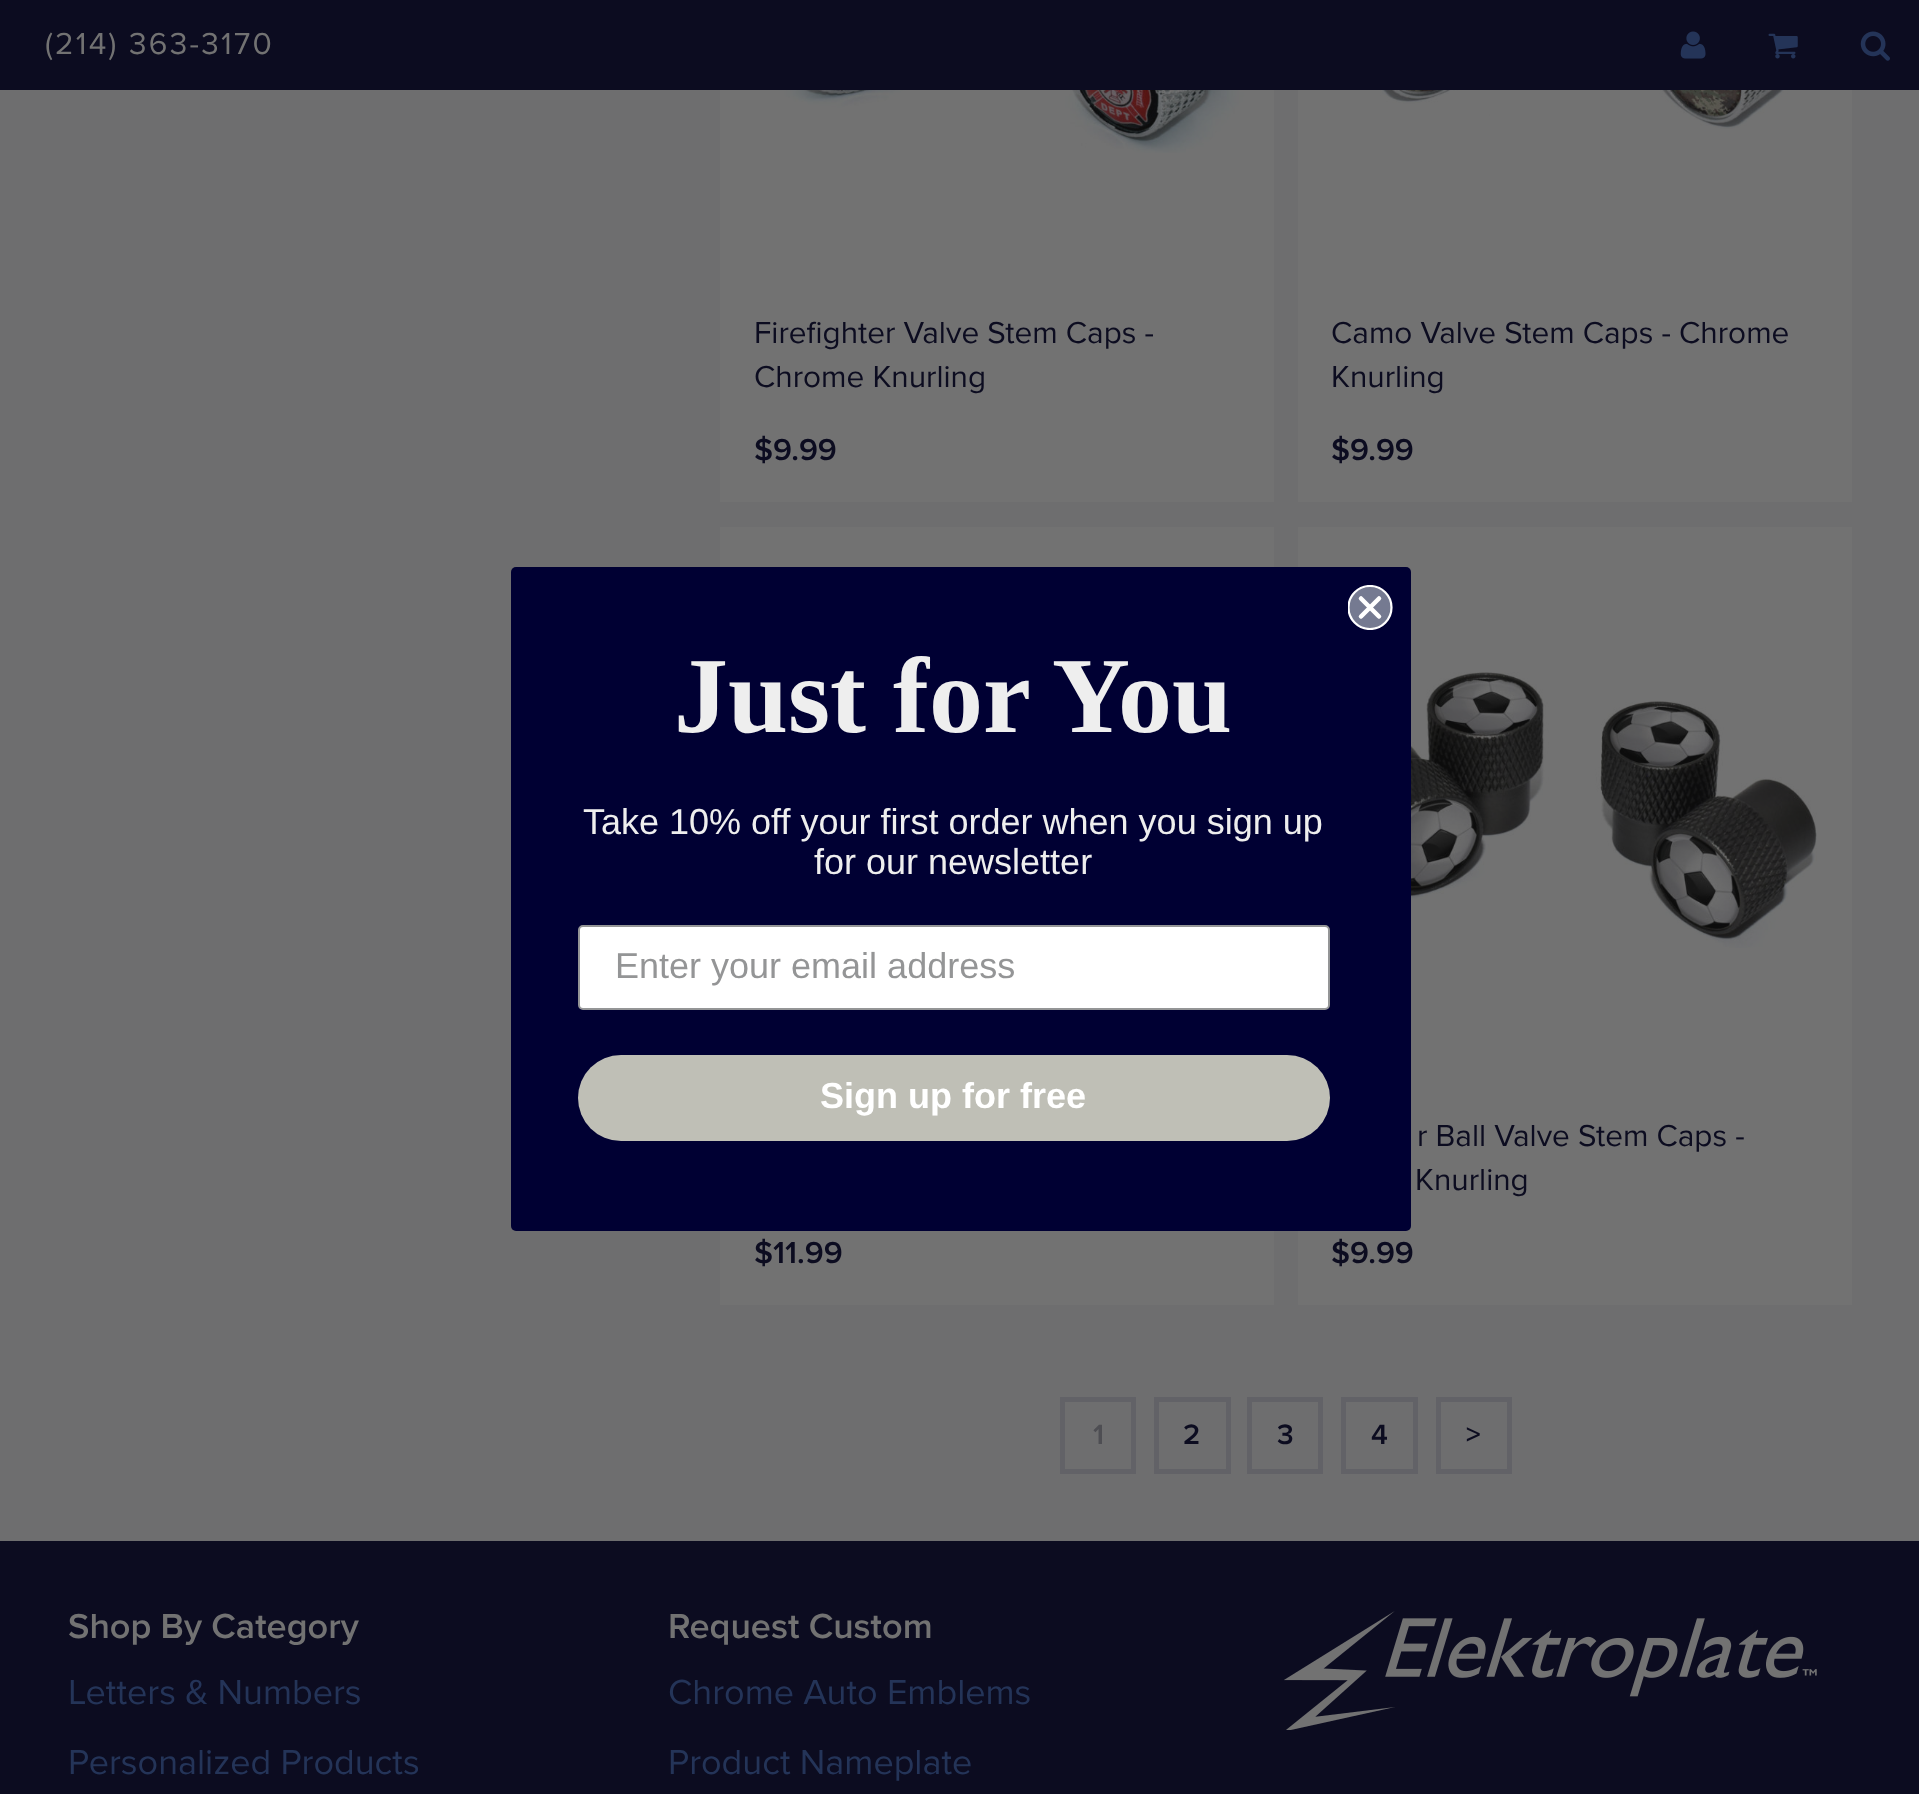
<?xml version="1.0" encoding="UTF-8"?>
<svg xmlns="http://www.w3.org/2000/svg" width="1919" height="1794">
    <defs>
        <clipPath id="clip1"><rect x="1348" y="585" width="45" height="45"/></clipPath>
    </defs>
    <rect width="100%" height="100%" fill="#6E6E6F"/>
    <rect x="0" y="0" width="1919" height="90" fill="#0C0C20"/>
    <text x="45" y="54" font-family="Proxima Nova" font-size="31.5" letter-spacing="2.25" fill="#727272">(214) 363-3170</text>
    <image x="1680" y="31" width="26" height="28" href="img_01.png"/>
    <image x="1768" y="33" width="30" height="26" href="img_02.png"/>
    <image x="1860" y="31" width="30" height="30" href="img_03.png"/>
    <rect x="720" y="90" width="554" height="412" fill="#727272"/>
    <image x="773" y="90" width="472" height="63" href="img_04.png"/>
    <text font-family="Proxima Nova" font-size="31.5" fill="#0C0C20">
        <tspan x="754" y="343">Firefighter Valve Stem Caps -</tspan>
        <tspan x="754" y="387">Chrome Knurling</tspan>
    </text>
    <text x="754" y="460" font-family="Proxima Nova" font-size="31.5" font-weight="600" fill="#0C0C20">$9.99</text>
    <rect x="1298" y="90" width="554" height="412" fill="#727272"/>
    <image x="1334" y="90" width="483" height="39" href="img_05.png"/>
    <text font-family="Proxima Nova" font-size="31.5" fill="#0C0C20">
        <tspan x="1331" y="343">Camo Valve Stem Caps - Chrome</tspan>
        <tspan x="1331" y="387">Knurling</tspan>
    </text>
    <text x="1331" y="460" font-family="Proxima Nova" font-size="31.5" font-weight="600" fill="#0C0C20">$9.99</text>
    <rect x="720" y="527" width="554" height="778" fill="#727272"/>
    <text x="754" y="1263" font-family="Proxima Nova" font-size="31.5" font-weight="600" fill="#0C0C20">$11.99</text>
    <rect x="1298" y="527" width="554" height="778" fill="#727272"/>
    <image x="1411" y="672" width="406" height="276" href="img_06.png"/>
    <text x="1417" y="1146" font-family="Proxima Nova" font-size="31.5" fill="#0C0C20">r Ball Valve Stem Caps -</text>
    <text x="1415" y="1190" font-family="Proxima Nova" font-size="31.5" fill="#0C0C20">Knurling</text>
    <text x="1331" y="1263" font-family="Proxima Nova" font-size="31.5" font-weight="600" fill="#0C0C20">$9.99</text>
    <rect x="1062.5" y="1399.5" width="71" height="72" fill="none" stroke="#626267" stroke-width="5"/>
    <text x="1093" y="1444" font-family="Proxima Nova" font-size="29" font-weight="600" fill="#4E4E53">1</text>
    <rect x="1156.5" y="1399.5" width="72" height="72" fill="none" stroke="#626267" stroke-width="5"/>
    <text x="1183" y="1444" font-family="Proxima Nova" font-size="29" font-weight="600" fill="#0C0C20">2</text>
    <rect x="1249.5" y="1399.5" width="71" height="72" fill="none" stroke="#626267" stroke-width="5"/>
    <text x="1277" y="1444" font-family="Proxima Nova" font-size="29" font-weight="600" fill="#0C0C20">3</text>
    <rect x="1343.5" y="1399.5" width="72" height="72" fill="none" stroke="#626267" stroke-width="5"/>
    <text x="1371" y="1444" font-family="Proxima Nova" font-size="29" font-weight="600" fill="#0C0C20">4</text>
    <rect x="1438.5" y="1399.5" width="71" height="72" fill="none" stroke="#626267" stroke-width="5"/>
    <text x="1466" y="1444" font-family="Proxima Nova" font-size="29" font-weight="600" fill="#0C0C20">&gt;</text>
    <rect x="0" y="1541" width="1919" height="253" fill="#0C0C20"/>
    <text x="68" y="1638" font-family="Proxima Nova" font-size="36" font-weight="600" fill="#727272">Shop By Category</text>
    <text font-family="Proxima Nova" font-size="36" fill="#243458">
        <tspan x="68" y="1704">Letters &amp; Numbers</tspan>
        <tspan x="68" y="1774">Personalized Products</tspan>
    </text>
    <text x="668" y="1638" font-family="Proxima Nova" font-size="36" font-weight="600" fill="#727272">Request Custom</text>
    <text font-family="Proxima Nova" font-size="36" fill="#243458">
        <tspan x="668" y="1704">Chrome Auto Emblems</tspan>
        <tspan x="668" y="1774">Product Nameplate</tspan>
    </text>
    <image x="1284" y="1611" width="533" height="119" href="img_07.png"/>
    <rect x="511" y="567" width="900" height="664" rx="5" fill="#000033"/>
    <circle cx="1370" cy="607.5" r="21.5" fill="#757A91"/>
    <g clip-path="url(#clip1)">
        <circle cx="1370" cy="607.5" r="21.5" fill="none" stroke="#FFFFFF" stroke-width="2.2"/>
    </g>
    <path d="M 1361 598.5 L 1379 616.5 M 1361 616.5 L 1379 598.5 Z" fill="none" stroke="#FFFFFF" stroke-width="4.5" stroke-linecap="round" stroke-linejoin="round"/>
    <text x="674" y="732" font-family="Liberation Serif" font-size="108" font-weight="700" fill="#EEEEEE">Just for You</text>
    <text x="583" y="834" font-family="Liberation Sans" font-size="36" fill="#EEEEEE">Take 10% off your first order when you sign up</text>
    <text x="814" y="874" font-family="Liberation Sans" font-size="36" fill="#EEEEEE">for our newsletter</text>
    <rect x="579" y="926" width="750" height="83" rx="4" fill="#FFFFFF" stroke="#949596" stroke-width="2"/>
    <text x="615" y="978" font-family="Liberation Sans" font-size="36" fill="#949596">Enter your email address</text>
    <rect x="578" y="1055" width="752" height="86" rx="43" fill="#BFBFB6"/>
    <text x="820" y="1108" font-family="Liberation Sans" font-size="36" font-weight="700" fill="#FFFFFF">Sign up for free</text>
</svg>
